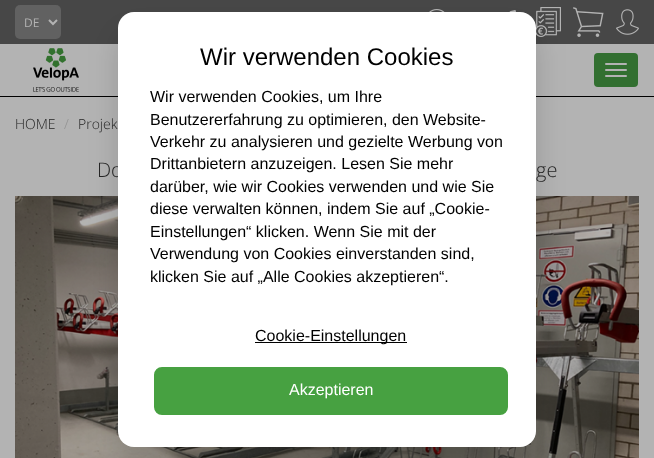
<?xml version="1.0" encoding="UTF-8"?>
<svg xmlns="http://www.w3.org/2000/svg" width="654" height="458">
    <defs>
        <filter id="blur1" x="-50%" y="-200%" width="200%" height="500%"><feGaussianBlur stdDeviation="15"/></filter>
    </defs>
    <rect width="100%" height="100%" fill="#B3B3B3"/>
    <rect x="0" y="0" width="654" height="44" fill="#474747"/>
    <rect x="15" y="5" width="46" height="34" rx="5" fill="#616161"/>
    <path d="M 49 20 L 53 24 L 57 20" fill="none" stroke="#B3B3B3" stroke-width="2"/>
    <text x="24" y="27" font-family="Open Sans" font-size="12" fill="#B3B3B3">DE</text>
    <image x="429" y="9" width="16" height="3" href="img_01.png"/>
    <image x="509" y="10" width="7" height="2" href="img_02.png"/>
    <image x="536" y="7" width="25" height="30" href="img_03.png"/>
    <image x="573" y="7" width="31" height="30" href="img_04.png"/>
    <image x="616" y="9" width="23" height="26" href="img_05.png"/>
    <rect x="0" y="96" width="654" height="1" fill="#000000"/>
    <image x="33" y="48" width="46" height="44" href="img_06.png"/>
    <rect x="594" y="53" width="44" height="34" rx="4" fill="#326F30"/>
    <rect x="605" y="63" width="22" height="2" rx="1" fill="#B3B3B3"/>
    <rect x="605" y="69" width="22" height="2" rx="1" fill="#B3B3B3"/>
    <rect x="605" y="75" width="22" height="2" rx="1" fill="#B3B3B3"/>
    <image x="15" y="196" width="624" height="262" href="img_07.png"/>
    <rect x="118" y="32" width="418" height="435" rx="16" fill="#000000" fill-opacity="0.15" filter="url(#blur1)"/>
    <text x="97" y="177" font-family="Open Sans" font-size="20" font-weight="300" fill="#242424">Do</text>
    <rect x="118" y="12" width="418" height="435" rx="16" fill="#FFFFFF"/>
    <text x="200" y="65" font-family="Liberation Sans" font-size="24" fill="#000000">Wir verwenden Cookies</text>
    <text font-family="Liberation Sans" font-size="16" fill="#000000">
        <tspan x="150" y="102">Wir verwenden Cookies, um Ihre</tspan>
        <tspan x="150" y="125">Benutzererfahrung zu optimieren, den Website-</tspan>
        <tspan x="150" y="147">Verkehr zu analysieren und gezielte Werbung von</tspan>
        <tspan x="150" y="169">Drittanbietern anzuzeigen. Lesen Sie mehr</tspan>
        <tspan x="150" y="192">darüber, wie wir Cookies verwenden und wie Sie</tspan>
        <tspan x="150" y="214">diese verwalten können, indem Sie auf „Cookie-</tspan>
        <tspan x="150" y="237">Einstellungen“ klicken. Wenn Sie mit der</tspan>
        <tspan x="150" y="259">Verwendung von Cookies einverstanden sind,</tspan>
        <tspan x="150" y="282">klicken Sie auf „Alle Cookies akzeptieren“.</tspan>
    </text>
    <rect x="255" y="342" width="152" height="1" fill="#000000"/>
    <text x="255" y="341" font-family="Liberation Sans" font-size="16" fill="#000000">Cookie-Einstellungen</text>
    <rect x="155" y="368" width="352" height="46" rx="7" fill="#47A141" stroke="#47A141" stroke-width="2"/>
    <text x="289" y="395" font-family="Liberation Sans" font-size="16" fill="#FFFFFF">Akzeptieren</text>
    <text x="15" y="129" font-family="Open Sans" font-size="14" font-weight="300" fill="#242424">HOME</text>
    <text x="64" y="129" font-family="Open Sans" font-size="14" font-weight="300" fill="#8F8F8F">/</text>
    <text x="78" y="129" font-family="Open Sans" font-size="14" font-weight="300" fill="#242424">Projek</text>
    <text x="536" y="177" font-family="Open Sans" font-size="20" font-weight="300" fill="#242424">ge</text>
</svg>
